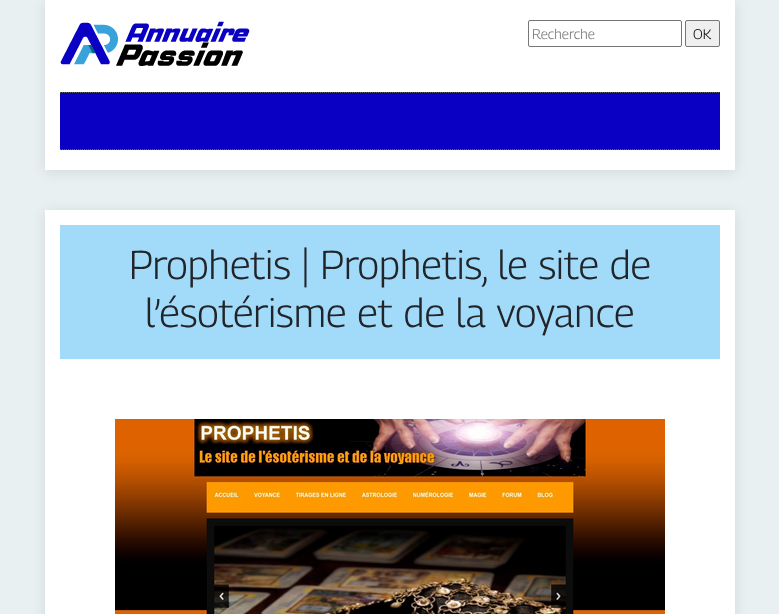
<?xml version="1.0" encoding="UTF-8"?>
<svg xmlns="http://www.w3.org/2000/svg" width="779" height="614">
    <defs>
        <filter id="blur1" x="-50%" y="-200%" width="200%" height="500%"><feGaussianBlur stdDeviation="6.5"/></filter>
    </defs>
    <rect width="100%" height="100%" fill="#E8F0F2"/>
    <rect x="45" y="2" width="690" height="170" fill="#000000" fill-opacity="0.1" filter="url(#blur1)"/>
    <rect x="45" y="0" width="690" height="170" fill="#FFFFFF"/>
    <image x="60" y="21" width="190" height="45" href="img_01.png"/>
    <rect x="528.5" y="20.5" width="153" height="26" rx="1.5" fill="none" stroke="#767676"/>
    <text x="532" y="39" font-family="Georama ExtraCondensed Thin" font-size="14" font-weight="100" fill="#757575">Recherche</text>
    <rect x="685.5" y="20.5" width="34" height="26" rx="1.5" fill="#EFEFEF" stroke="#767676"/>
    <text x="693" y="39" font-family="Georama ExtraCondensed Thin" font-size="14" font-weight="100" fill="#000000">OK</text>
    <rect x="60" y="92" width="660" height="58" fill="#0900C3"/>
    <path d="M 60 92.5 H 720" fill="none" stroke="#666666" stroke-dasharray="1 1"/>
    <path d="M 60 149.5 H 720" fill="none" stroke="#666666" stroke-dasharray="1 1"/>
    <rect x="45" y="212" width="690" height="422" fill="#000000" fill-opacity="0.1" filter="url(#blur1)"/>
    <rect x="45" y="210" width="690" height="404" fill="#FFFFFF"/>
    <rect x="60" y="225" width="660" height="134" fill="#A2DBFA"/>
    <text x="129" y="279" font-family="Georama ExtraCondensed Thin" font-size="40" font-weight="100" fill="#212529">Prophetis | Prophetis, le site de</text>
    <text x="145" y="327" font-family="Georama ExtraCondensed Thin" font-size="40" font-weight="100" fill="#212529">l’ésotérisme et de la voyance</text>
    <image x="115" y="419" width="550" height="195" href="img_02.png"/>
</svg>
